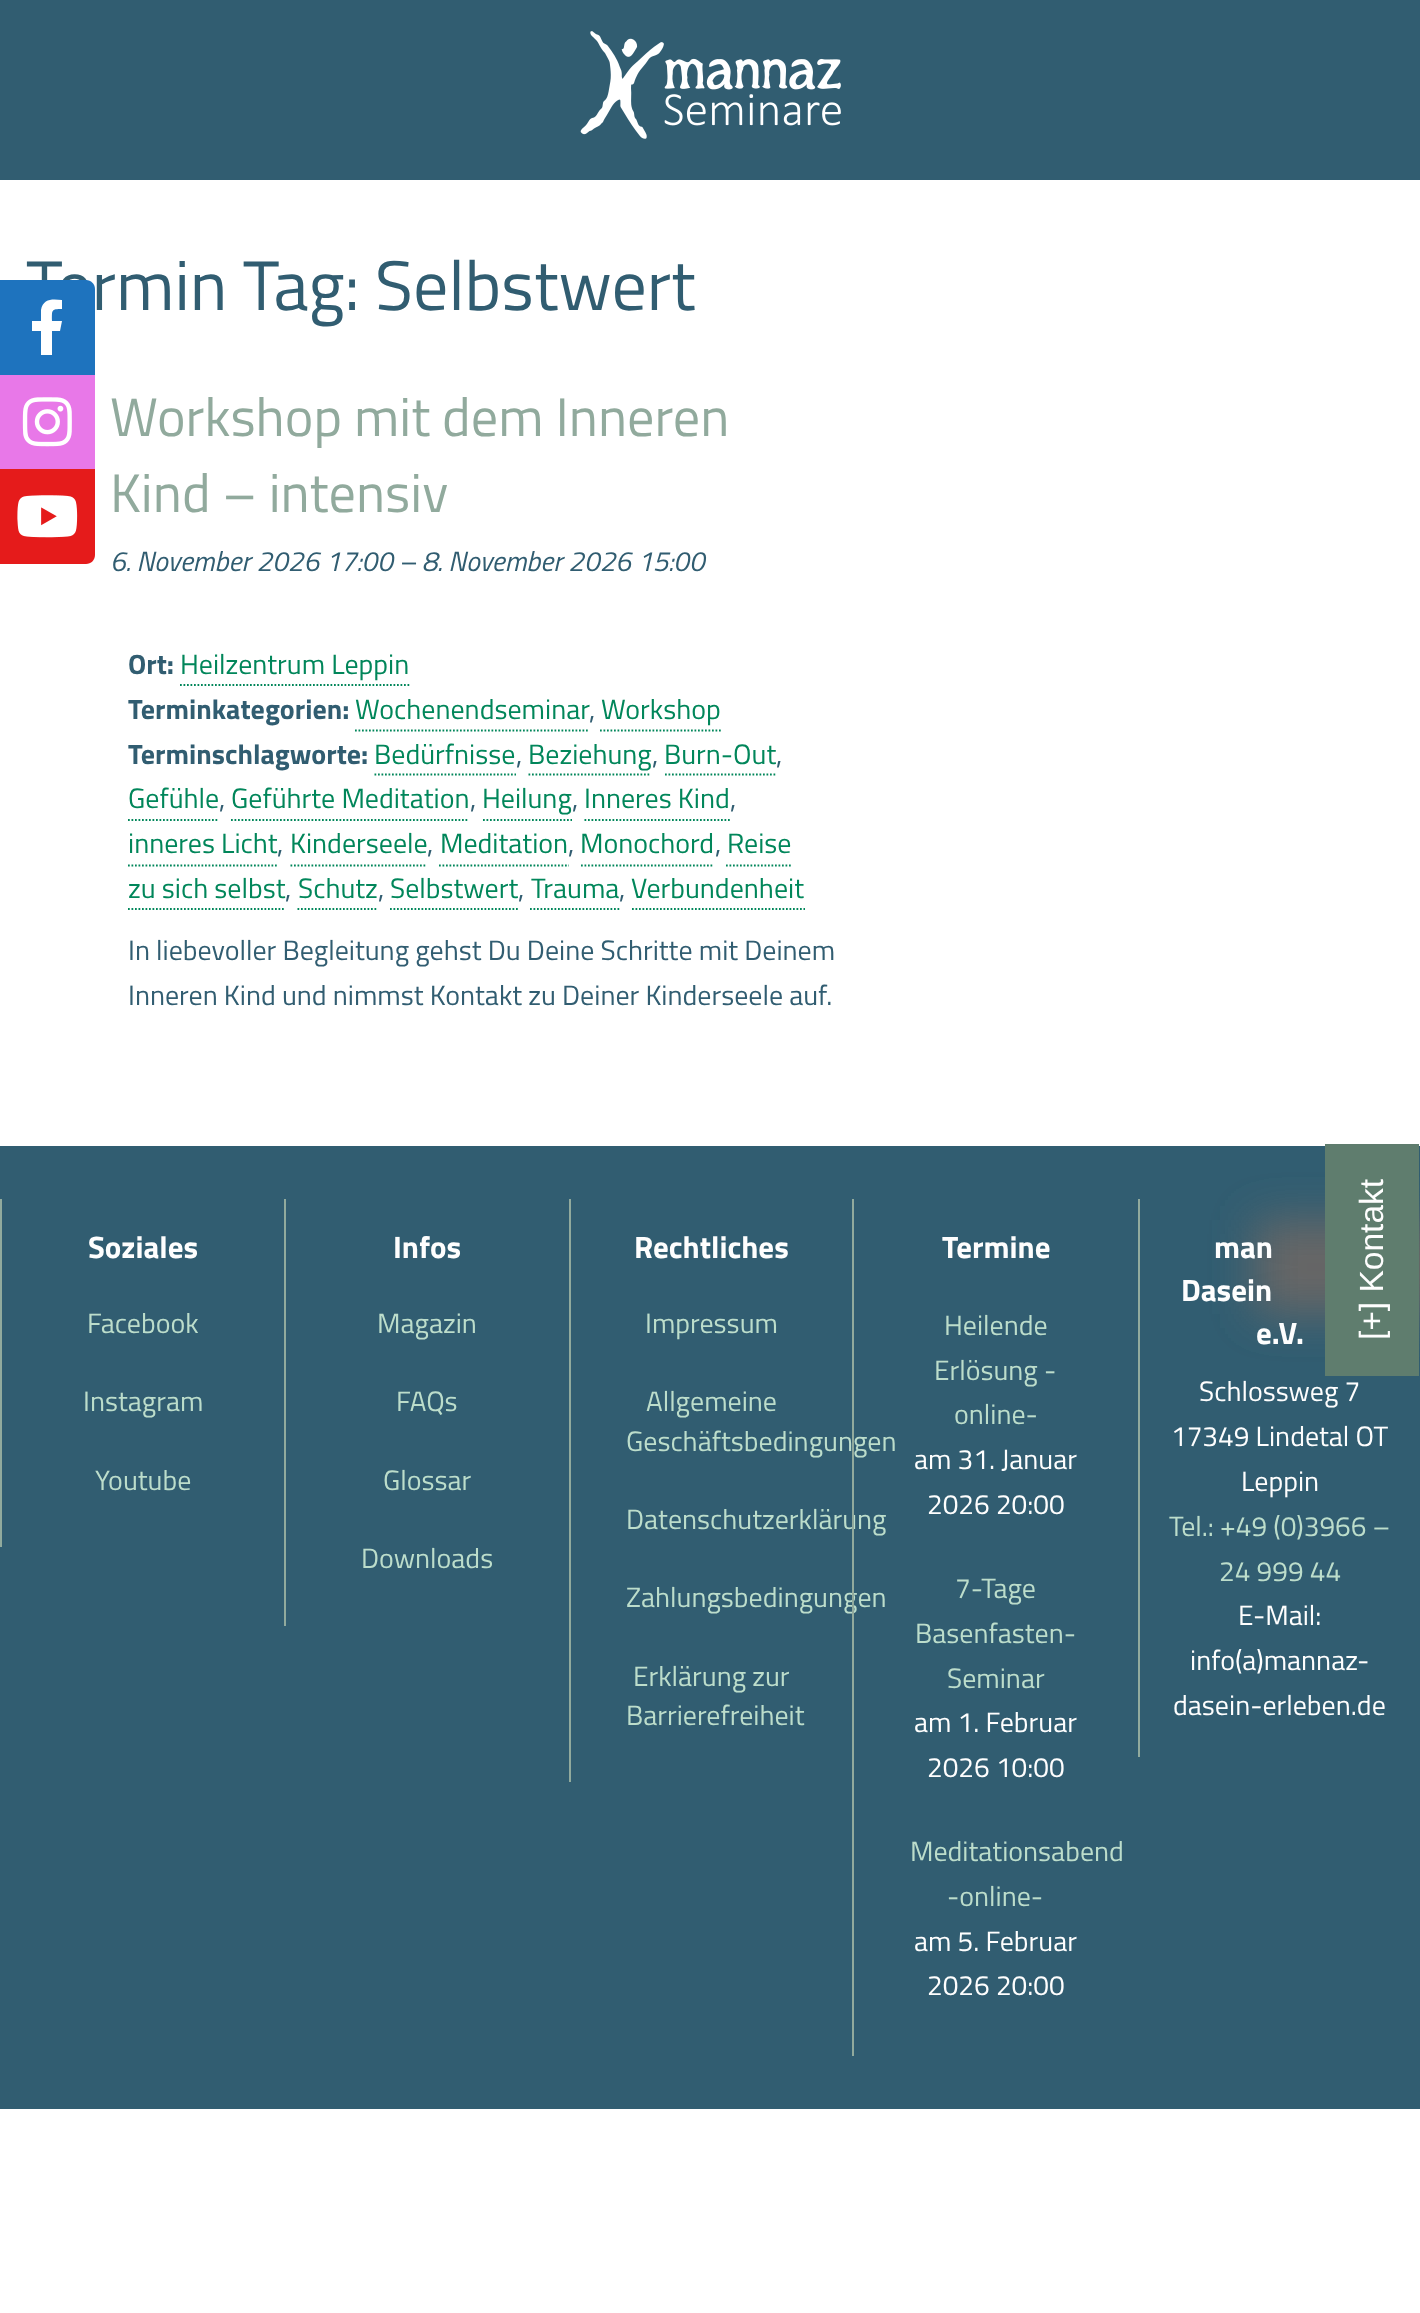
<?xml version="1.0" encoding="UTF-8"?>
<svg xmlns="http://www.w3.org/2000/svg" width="1420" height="2313">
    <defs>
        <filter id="blur1" x="-50%" y="-200%" width="200%" height="500%"><feGaussianBlur stdDeviation="22"/></filter>
    </defs>
    <rect width="100%" height="100%" fill="#FFFFFF"/>
    <rect x="0" y="0" width="1420" height="180" fill="#315D71"/>
    <image x="580" y="31" width="261" height="108" href="img_01.png"/>
    <text x="26" y="310" font-family="Titillium Web" font-size="70" fill="#315D71">Termin Tag: Selbstwert</text>
    <text font-family="Titillium Web" font-size="54.25" fill="#91AA9D">
        <tspan x="110" y="436">Workshop mit dem Inneren</tspan>
        <tspan x="110" y="512">Kind – intensiv</tspan>
    </text>
    <text x="110" y="571" font-family="Titillium Web" font-size="28" font-style="italic" fill="#315D71">6. November 2026 17:00 – 8. November 2026 15:00</text>
    <text x="128" y="674" font-family="Titillium Web" font-size="28" font-weight="700" fill="#315D71">Ort:</text>
    <text x="180" y="674" font-family="Titillium Web" font-size="28" fill="#01865A">Heilzentrum Leppin</text>
    <path d="M 180 685 H 409.5" fill="none" stroke="#01865A" stroke-width="1.8" stroke-dasharray="1.75 1.75"/>
    <text x="128" y="719" font-family="Titillium Web" font-size="28" font-weight="700" fill="#315D71">Terminkategorien:</text>
    <text x="355" y="719" font-family="Titillium Web" font-size="28" fill="#01865A">Wochenendseminar</text>
    <path d="M 355 730.5 H 588" fill="none" stroke="#01865A" stroke-width="1.8" stroke-dasharray="1.75 1.75"/>
    <text x="589" y="719" font-family="Titillium Web" font-size="28" fill="#315D71">,</text>
    <text x="601" y="719" font-family="Titillium Web" font-size="28" fill="#01865A">Workshop</text>
    <path d="M 600 730.5 H 721" fill="none" stroke="#01865A" stroke-width="1.8" stroke-dasharray="1.75 1.75"/>
    <text x="128" y="764" font-family="Titillium Web" font-size="28" font-weight="700" fill="#315D71">Terminschlagworte:</text>
    <text x="374" y="764" font-family="Titillium Web" font-size="28" fill="#01865A">Bedürfnisse</text>
    <path d="M 374.5 774.5 H 516" fill="none" stroke="#01865A" stroke-width="1.8" stroke-dasharray="1.75 1.75"/>
    <text x="516" y="764" font-family="Titillium Web" font-size="28" fill="#315D71">,</text>
    <text x="528" y="764" font-family="Titillium Web" font-size="28" fill="#01865A">Beziehung</text>
    <path d="M 528.5 774.5 H 651" fill="none" stroke="#01865A" stroke-width="1.8" stroke-dasharray="1.75 1.75"/>
    <text x="652" y="764" font-family="Titillium Web" font-size="28" fill="#315D71">,</text>
    <text x="664" y="764" font-family="Titillium Web" font-size="28" fill="#01865A">Burn-Out</text>
    <path d="M 665 774.5 H 777" fill="none" stroke="#01865A" stroke-width="1.8" stroke-dasharray="1.75 1.75"/>
    <text x="776" y="764" font-family="Titillium Web" font-size="28" fill="#315D71">,</text>
    <text x="128" y="808" font-family="Titillium Web" font-size="28" fill="#01865A">Gefühle</text>
    <path d="M 128 820 H 219" fill="none" stroke="#01865A" stroke-width="1.8" stroke-dasharray="1.75 1.75"/>
    <text x="219" y="808" font-family="Titillium Web" font-size="28" fill="#315D71">,</text>
    <text x="231" y="808" font-family="Titillium Web" font-size="28" fill="#01865A">Geführte Meditation</text>
    <path d="M 231 820 H 469" fill="none" stroke="#01865A" stroke-width="1.8" stroke-dasharray="1.75 1.75"/>
    <text x="470" y="808" font-family="Titillium Web" font-size="28" fill="#315D71">,</text>
    <text x="482" y="808" font-family="Titillium Web" font-size="28" fill="#01865A">Heilung</text>
    <path d="M 483 820 H 572" fill="none" stroke="#01865A" stroke-width="1.8" stroke-dasharray="1.75 1.75"/>
    <text x="572" y="808" font-family="Titillium Web" font-size="28" fill="#315D71">,</text>
    <text x="584" y="808" font-family="Titillium Web" font-size="28" fill="#01865A">Inneres Kind</text>
    <path d="M 584.5 820 H 730" fill="none" stroke="#01865A" stroke-width="1.8" stroke-dasharray="1.75 1.75"/>
    <text x="730" y="808" font-family="Titillium Web" font-size="28" fill="#315D71">,</text>
    <text x="128" y="853" font-family="Titillium Web" font-size="28" fill="#01865A">inneres Licht</text>
    <path d="M 128 865.5 H 278" fill="none" stroke="#01865A" stroke-width="1.8" stroke-dasharray="1.75 1.75"/>
    <text x="277" y="853" font-family="Titillium Web" font-size="28" fill="#315D71">,</text>
    <text x="290" y="853" font-family="Titillium Web" font-size="28" fill="#01865A">Kinderseele</text>
    <path d="M 290.5 865.5 H 427" fill="none" stroke="#01865A" stroke-width="1.8" stroke-dasharray="1.75 1.75"/>
    <text x="427" y="853" font-family="Titillium Web" font-size="28" fill="#315D71">,</text>
    <text x="440" y="853" font-family="Titillium Web" font-size="28" fill="#01865A">Meditation</text>
    <path d="M 439 865.5 H 569" fill="none" stroke="#01865A" stroke-width="1.8" stroke-dasharray="1.75 1.75"/>
    <text x="568" y="853" font-family="Titillium Web" font-size="28" fill="#315D71">,</text>
    <text x="580" y="853" font-family="Titillium Web" font-size="28" fill="#01865A">Monochord</text>
    <path d="M 581 865.5 H 714" fill="none" stroke="#01865A" stroke-width="1.8" stroke-dasharray="1.75 1.75"/>
    <text x="715" y="853" font-family="Titillium Web" font-size="28" fill="#315D71">,</text>
    <text x="727" y="853" font-family="Titillium Web" font-size="28" fill="#01865A">Reise</text>
    <path d="M 726 865.5 H 791" fill="none" stroke="#01865A" stroke-width="1.8" stroke-dasharray="1.75 1.75"/>
    <text x="128" y="898" font-family="Titillium Web" font-size="28" fill="#01865A">zu sich selbst</text>
    <path d="M 128 909 H 285" fill="none" stroke="#01865A" stroke-width="1.8" stroke-dasharray="1.75 1.75"/>
    <text x="285" y="898" font-family="Titillium Web" font-size="28" fill="#315D71">,</text>
    <text x="298" y="898" font-family="Titillium Web" font-size="28" fill="#01865A">Schutz</text>
    <path d="M 297.5 909 H 378" fill="none" stroke="#01865A" stroke-width="1.8" stroke-dasharray="1.75 1.75"/>
    <text x="378" y="898" font-family="Titillium Web" font-size="28" fill="#315D71">,</text>
    <text x="390" y="898" font-family="Titillium Web" font-size="28" fill="#01865A">Selbstwert</text>
    <path d="M 390 909 H 518" fill="none" stroke="#01865A" stroke-width="1.8" stroke-dasharray="1.75 1.75"/>
    <text x="518" y="898" font-family="Titillium Web" font-size="28" fill="#315D71">,</text>
    <text x="531" y="898" font-family="Titillium Web" font-size="28" fill="#01865A">Trauma</text>
    <path d="M 530 909 H 619.5" fill="none" stroke="#01865A" stroke-width="1.8" stroke-dasharray="1.75 1.75"/>
    <text x="619" y="898" font-family="Titillium Web" font-size="28" fill="#315D71">,</text>
    <text x="631" y="898" font-family="Titillium Web" font-size="28" fill="#01865A">Verbundenheit</text>
    <path d="M 632 909 H 805" fill="none" stroke="#01865A" stroke-width="1.8" stroke-dasharray="1.75 1.75"/>
    <text font-family="Titillium Web" font-size="28" fill="#315D71">
        <tspan x="128" y="960">In liebevoller Begleitung gehst Du Deine Schritte mit Deinem</tspan>
        <tspan x="128" y="1005">Inneren Kind und nimmst Kontakt zu Deiner Kinderseele auf.</tspan>
    </text>
    <rect x="0" y="1146" width="1420" height="963" fill="#315D71"/>
    <rect x="1255" y="1220" width="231" height="94" fill="#666666" filter="url(#blur1)"/>
    <rect x="1325" y="1144" width="94" height="232" fill="#5F7D6E"/>
    <text x="1383" y="1340" transform="rotate(-90 1383 1340)" font-family="Liberation Sans" font-size="33.5" fill="#FEFEFE">[+] Kontakt</text>
    <rect x="0" y="1199" width="2" height="348" fill="#91AA9D"/>
    <text x="88" y="1258" font-family="Titillium Web" font-size="31" font-weight="700" fill="#FEFEFE">Soziales</text>
    <text x="87" y="1333" font-family="Titillium Web" font-size="28" fill="#BCDDCB">Facebook</text>
    <text x="83" y="1411" font-family="Titillium Web" font-size="28" fill="#BCDDCB">Instagram</text>
    <text x="95" y="1490" font-family="Titillium Web" font-size="28" fill="#BCDDCB">Youtube</text>
    <rect x="284" y="1199" width="2" height="427" fill="#91AA9D"/>
    <text x="393" y="1258" font-family="Titillium Web" font-size="31" font-weight="700" fill="#FEFEFE">Infos</text>
    <text x="377" y="1333" font-family="Titillium Web" font-size="28" fill="#BCDDCB">Magazin</text>
    <text x="396" y="1411" font-family="Titillium Web" font-size="28" fill="#BCDDCB">FAQs</text>
    <text x="383" y="1490" font-family="Titillium Web" font-size="28" fill="#BCDDCB">Glossar</text>
    <text x="361" y="1568" font-family="Titillium Web" font-size="28" fill="#BCDDCB">Downloads</text>
    <rect x="569" y="1199" width="2" height="583" fill="#91AA9D"/>
    <text x="634" y="1258" font-family="Titillium Web" font-size="31" font-weight="700" fill="#FEFEFE">Rechtliches</text>
    <text x="645" y="1333" font-family="Titillium Web" font-size="28" fill="#BCDDCB">Impressum</text>
    <text x="646" y="1411" font-family="Titillium Web" font-size="28" fill="#BCDDCB">Allgemeine</text>
    <text x="626" y="1451" font-family="Titillium Web" font-size="28" fill="#BCDDCB">Geschäftsbedingungen</text>
    <text x="626" y="1529" font-family="Titillium Web" font-size="28" fill="#BCDDCB">Datenschutzerklärung</text>
    <text x="626" y="1607" font-family="Titillium Web" font-size="28" fill="#BCDDCB">Zahlungsbedingungen</text>
    <text x="633" y="1686" font-family="Titillium Web" font-size="28" fill="#BCDDCB">Erklärung zur</text>
    <text x="626" y="1725" font-family="Titillium Web" font-size="28" fill="#BCDDCB">Barrierefreiheit</text>
    <rect x="852" y="1199" width="2" height="857" fill="#91AA9D"/>
    <text x="942" y="1258" font-family="Titillium Web" font-size="31" font-weight="700" fill="#FEFEFE">Termine</text>
    <text x="944" y="1335" font-family="Titillium Web" font-size="28" fill="#BCDDCB">Heilende</text>
    <text x="934" y="1380" font-family="Titillium Web" font-size="28" fill="#BCDDCB">Erlösung -</text>
    <text x="954" y="1424" font-family="Titillium Web" font-size="28" fill="#BCDDCB">online-</text>
    <text x="914" y="1469" font-family="Titillium Web" font-size="28" fill="#FEFEFE">am 31. Januar</text>
    <text x="927" y="1514" font-family="Titillium Web" font-size="28" fill="#FEFEFE">2026 20:00</text>
    <text x="955" y="1598" font-family="Titillium Web" font-size="28" fill="#BCDDCB">7-Tage</text>
    <text x="915" y="1643" font-family="Titillium Web" font-size="28" fill="#BCDDCB">Basenfasten-</text>
    <text x="947" y="1688" font-family="Titillium Web" font-size="28" fill="#BCDDCB">Seminar</text>
    <text x="914" y="1732" font-family="Titillium Web" font-size="28" fill="#FEFEFE">am 1. Februar</text>
    <text x="927" y="1777" font-family="Titillium Web" font-size="28" fill="#FEFEFE">2026 10:00</text>
    <text x="910" y="1861" font-family="Titillium Web" font-size="28" fill="#BCDDCB">Meditationsabend</text>
    <text x="947" y="1906" font-family="Titillium Web" font-size="28" fill="#BCDDCB">-online-</text>
    <text x="914" y="1951" font-family="Titillium Web" font-size="28" fill="#FEFEFE">am 5. Februar</text>
    <text x="927" y="1995" font-family="Titillium Web" font-size="28" fill="#FEFEFE">2026 20:00</text>
    <rect x="1138" y="1199" width="2" height="558" fill="#91AA9D"/>
    <text x="1214" y="1258" font-family="Titillium Web" font-size="31" font-weight="700" fill="#FEFEFE">man</text>
    <text x="1181" y="1301" font-family="Titillium Web" font-size="31" font-weight="700" fill="#FEFEFE">Dasein</text>
    <text x="1256" y="1344" font-family="Titillium Web" font-size="31" font-weight="700" fill="#FEFEFE">e.V.</text>
    <text x="1199" y="1401" font-family="Titillium Web" font-size="28" fill="#FEFEFE">Schlossweg 7</text>
    <text x="1171" y="1446" font-family="Titillium Web" font-size="28" fill="#FEFEFE">17349 Lindetal OT</text>
    <text x="1241" y="1491" font-family="Titillium Web" font-size="28" fill="#FEFEFE">Leppin</text>
    <text x="1169" y="1536" font-family="Titillium Web" font-size="28" fill="#BCDDCB">Tel.: +49 (0)3966 –</text>
    <text x="1219" y="1581" font-family="Titillium Web" font-size="28" fill="#BCDDCB">24 999 44</text>
    <text x="1238" y="1625" font-family="Titillium Web" font-size="28" fill="#FEFEFE">E-Mail:</text>
    <text x="1190" y="1670" font-family="Titillium Web" font-size="28" fill="#FEFEFE">info(a)mannaz-</text>
    <text x="1173" y="1715" font-family="Titillium Web" font-size="28" fill="#FEFEFE">dasein-erleben.de</text>
    <path d="M 0 280 H 86 C 91 280 95 284 95 289 V 375 H 0 Z" fill="#1E73BE"/>
    <path d="M 60 331 H 52 V 355 H 41 V 331 H 32 V 321 H 41 V 310 C 43 298 53 299 62 300 V 309 C 51 309 52 310 52 321 H 62 Z" fill="#FFFFFF"/>
    <rect x="0" y="375" width="95" height="94" fill="#E878E8"/>
    <image x="22" y="397" width="50" height="50" href="img_02.png"/>
    <path d="M 0 469 H 95 V 555 C 95 560 91 564 86 564 H 0 Z" fill="#E51B1B"/>
    <image x="17" y="495" width="61" height="43" href="img_03.png"/>
</svg>
